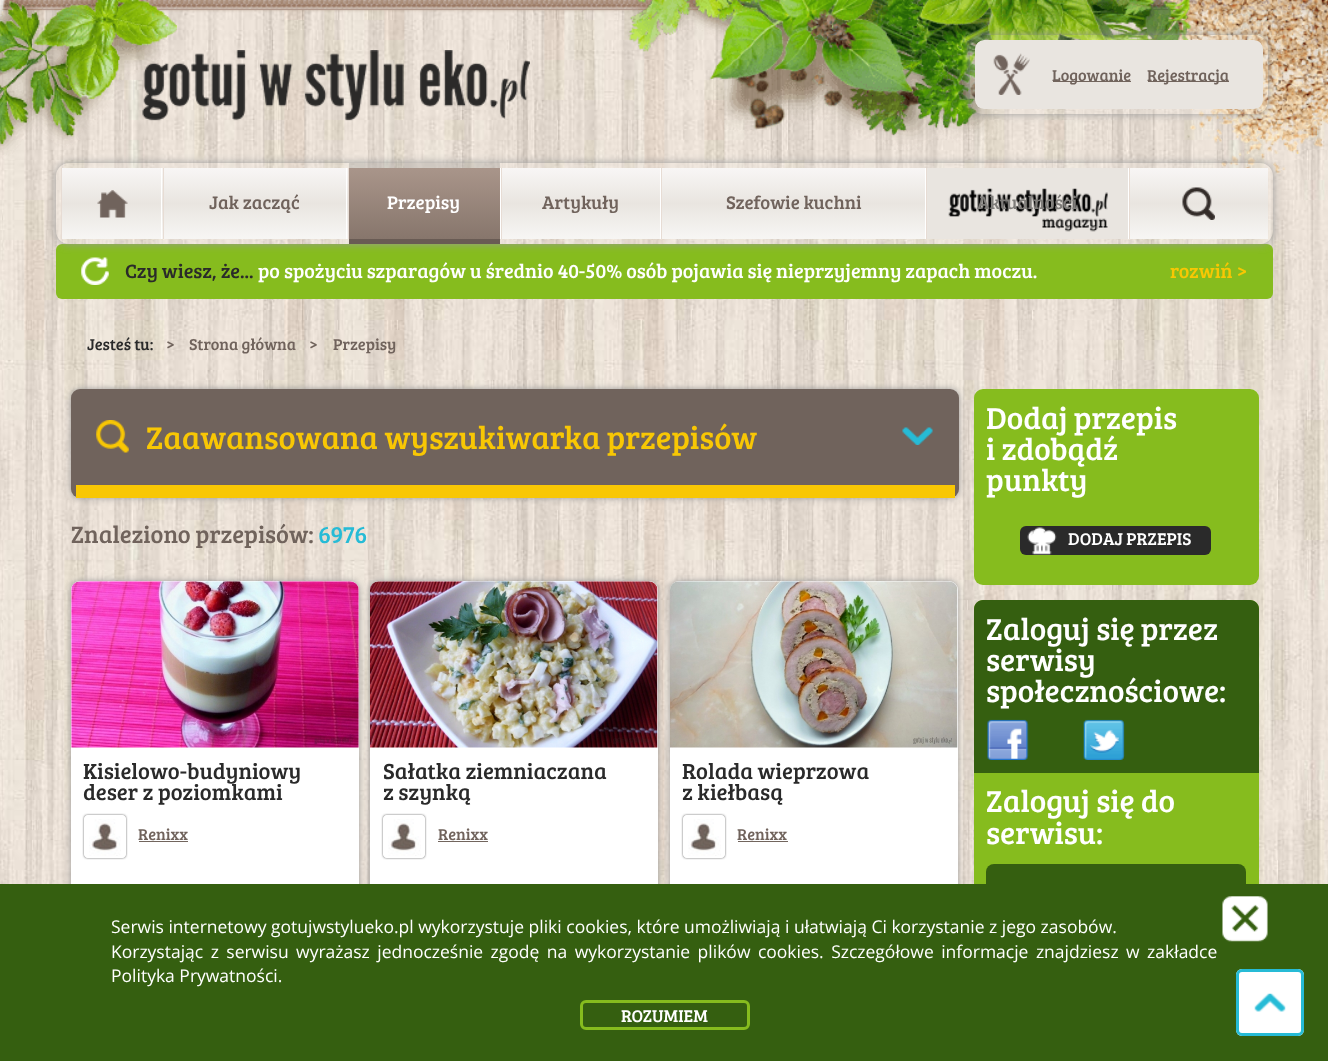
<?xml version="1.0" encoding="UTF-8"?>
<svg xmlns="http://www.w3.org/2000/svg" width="1328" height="1061">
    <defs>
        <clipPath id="clip1"><path d="M 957 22 H 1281 V 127 H 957 Z M 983 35 H 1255 C 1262 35 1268 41 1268 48 V 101 C 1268 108 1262 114 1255 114 H 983 C 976 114 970 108 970 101 V 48 C 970 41 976 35 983 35 Z" clip-rule="evenodd"/></clipPath>
        <filter id="blur1" x="-50%" y="-200%" width="200%" height="500%"><feGaussianBlur stdDeviation="4"/></filter>
        <clipPath id="clip2"><path d="M 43 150 H 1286 V 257 H 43 Z M 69 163 H 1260 C 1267 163 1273 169 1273 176 V 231 C 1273 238 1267 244 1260 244 H 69 C 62 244 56 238 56 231 V 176 C 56 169 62 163 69 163 Z" clip-rule="evenodd"/></clipPath>
        <linearGradient id="g1" gradientUnits="userSpaceOnUse" x1="112" y1="239" x2="112" y2="168"><stop offset="0" stop-color="#F7F6F4"/><stop offset="0.5" stop-color="#E9E5E0"/><stop offset="1" stop-color="#F8F6F5"/></linearGradient>
        <linearGradient id="g2" gradientUnits="userSpaceOnUse" x1="255" y1="239" x2="255" y2="168"><stop offset="0" stop-color="#F7F6F4"/><stop offset="0.5" stop-color="#E9E5E0"/><stop offset="1" stop-color="#F8F6F5"/></linearGradient>
        <linearGradient id="g3" gradientUnits="userSpaceOnUse" x1="424" y1="239" x2="424" y2="168"><stop offset="0" stop-color="#87766C"/><stop offset="1" stop-color="#A9958A"/></linearGradient>
        <linearGradient id="g4" gradientUnits="userSpaceOnUse" x1="581" y1="239" x2="581" y2="168"><stop offset="0" stop-color="#F7F6F4"/><stop offset="0.5" stop-color="#E9E5E0"/><stop offset="1" stop-color="#F8F6F5"/></linearGradient>
        <linearGradient id="g5" gradientUnits="userSpaceOnUse" x1="794" y1="239" x2="794" y2="168"><stop offset="0" stop-color="#F7F6F4"/><stop offset="0.5" stop-color="#E9E5E0"/><stop offset="1" stop-color="#F8F6F5"/></linearGradient>
        <linearGradient id="g6" gradientUnits="userSpaceOnUse" x1="1199" y1="239" x2="1199" y2="168"><stop offset="0" stop-color="#F7F6F4"/><stop offset="0.5" stop-color="#E9E5E0"/><stop offset="1" stop-color="#F8F6F5"/></linearGradient>
        <filter id="blur2" x="-50%" y="-200%" width="200%" height="500%"><feGaussianBlur stdDeviation="3"/></filter>
        <clipPath id="clip3"><path d="M 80 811 H 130 V 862 H 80 Z M 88 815 H 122 C 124 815 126 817 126 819 V 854 C 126 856 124 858 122 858 H 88 C 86 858 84 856 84 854 V 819 C 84 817 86 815 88 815 Z" clip-rule="evenodd"/></clipPath>
        <filter id="blur3" x="-50%" y="-200%" width="200%" height="500%"><feGaussianBlur stdDeviation="1"/></filter>
        <clipPath id="clip4"><path d="M 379 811 H 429 V 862 H 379 Z M 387 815 H 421 C 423 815 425 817 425 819 V 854 C 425 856 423 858 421 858 H 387 C 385 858 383 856 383 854 V 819 C 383 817 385 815 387 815 Z" clip-rule="evenodd"/></clipPath>
        <clipPath id="clip5"><path d="M 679 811 H 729 V 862 H 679 Z M 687 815 H 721 C 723 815 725 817 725 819 V 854 C 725 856 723 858 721 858 H 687 C 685 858 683 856 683 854 V 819 C 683 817 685 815 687 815 Z" clip-rule="evenodd"/></clipPath>
    </defs>
    <rect width="100%" height="100%" fill="#FFFFFF"/>
    <image x="0" y="0" width="1328" height="884" href="img_01.png"/>
    <image x="0" y="0" width="1328" height="174" href="img_02.png"/>
    <image x="142" y="50" width="388" height="71" href="img_03.png"/>
    <g clip-path="url(#clip1)">
        <rect x="970" y="35" width="298" height="79" rx="13" fill="#999999" filter="url(#blur1)"/>
    </g>
    <rect x="972.5" y="37.5" width="293" height="74" rx="10.5" fill="none" stroke="#F1EDE7" stroke-opacity="0.2" stroke-width="5"/>
    <rect x="975" y="40" width="288" height="69" rx="9" fill="#E9E5E0"/>
    <image x="993" y="53" width="37" height="42" href="img_04.png"/>
    <rect x="1053" y="81" width="78" height="1" fill="#72655D"/>
    <text x="1052" y="81" font-family="Bree Serif" font-size="16.25" fill="#70635C">Logowanie</text>
    <rect x="1148" y="81" width="81" height="1" fill="#72655D"/>
    <text x="1147" y="81" font-family="Bree Serif" font-size="16.25" fill="#70635C">Rejestracja</text>
    <rect x="56" y="244" width="1217" height="55" rx="6" fill="#86BC1E"/>
    <g clip-path="url(#clip2)">
        <rect x="56" y="163" width="1217" height="81" rx="13" fill="#999999" filter="url(#blur1)"/>
    </g>
    <rect x="58.5" y="165.5" width="1212" height="76" rx="10.5" fill="none" stroke="#F1EDE7" stroke-opacity="0.2" stroke-width="5"/>
    <rect x="927" y="168" width="201" height="71" fill="#E9E5E0"/>
    <rect x="62" y="168" width="101" height="71" fill="url(#g1)"/>
    <rect x="161" y="168" width="1" height="71" fill="#FFFFFF"/>
    <rect x="61" y="168" width="1" height="71" fill="#E7DCD4"/>
    <image x="97" y="190" width="31" height="28" href="img_05.png"/>
    <rect x="164" y="168" width="184" height="71" fill="url(#g2)"/>
    <rect x="346" y="168" width="1" height="71" fill="#FFFFFF"/>
    <rect x="163" y="168" width="1" height="71" fill="#E7DCD4"/>
    <text x="209" y="209" font-family="Bree Serif" font-size="18.75" fill="#70635C">Jak zacząć</text>
    <rect x="500" y="168" width="1" height="71" fill="#FFFFFF"/>
    <rect x="348" y="168" width="1" height="71" fill="#E7DCD4"/>
    <rect x="349" y="168" width="151" height="71" fill="url(#g3)"/>
    <rect x="349" y="163" width="151" height="5" fill="#646464" fill-opacity="0.2"/>
    <text x="387" y="209" font-family="Bree Serif" font-size="18.75" fill="#FFFFFF">Przepisy</text>
    <rect x="349" y="239" width="151" height="5" fill="#695B54"/>
    <rect x="502" y="168" width="158" height="71" fill="url(#g4)"/>
    <rect x="660" y="168" width="1" height="71" fill="#FFFFFF"/>
    <rect x="501" y="168" width="1" height="71" fill="#E7DCD4"/>
    <text x="542" y="209" font-family="Bree Serif" font-size="18.75" fill="#70635C">Artykuły</text>
    <rect x="662" y="168" width="263" height="71" fill="url(#g5)"/>
    <rect x="925" y="168" width="1" height="71" fill="#FFFFFF"/>
    <rect x="661" y="168" width="1" height="71" fill="#E7DCD4"/>
    <text x="726" y="209" font-family="Bree Serif" font-size="18.75" fill="#70635C">Szefowie kuchni</text>
    <image x="948" y="188" width="160" height="44" href="img_06.png"/>
    <rect x="1128" y="168" width="1" height="71" fill="#FFFFFF"/>
    <rect x="926" y="168" width="1" height="71" fill="#E7DCD4"/>
    <text x="977" y="209" font-family="Bree Serif" font-size="18.75" fill="#7F7D7A">Aktualności</text>
    <rect x="1130" y="168" width="138" height="71" fill="url(#g6)"/>
    <rect x="1129" y="168" width="1" height="71" fill="#E7DCD4"/>
    <image x="1182" y="187" width="33" height="33" href="img_07.png"/>
    <image x="81" y="257" width="28" height="28" href="img_08.png"/>
    <text x="125" y="278" font-family="Bree Serif" font-size="20" fill="#2A2A2A">Czy wiesz, że...</text>
    <text x="258" y="278" font-family="Bree Serif" font-size="20" fill="#FFFFFF">po spożyciu szparagów u średnio 40-50% osób pojawia się nieprzyjemny zapach moczu.</text>
    <text x="1170" y="278" font-family="Bree Serif" font-size="20" fill="#F8C704">rozwiń &gt;</text>
    <text x="87" y="350" font-family="Bree Serif" font-size="16.25" fill="#2A2A2A">Jesteś tu:</text>
    <text x="166" y="350" font-family="Bree Serif" font-size="16.25" fill="#70635C">&gt;</text>
    <text x="189" y="350" font-family="Bree Serif" font-size="16.25" fill="#70635C">Strona główna</text>
    <text x="309" y="350" font-family="Bree Serif" font-size="16.25" fill="#70635C">&gt;</text>
    <text x="333" y="350" font-family="Bree Serif" font-size="16.25" fill="#70635C">Przepisy</text>
    <rect x="71" y="389" width="888" height="109" rx="9" fill="#999999" filter="url(#blur2)"/>
    <rect x="71" y="389" width="888" height="109" rx="9" fill="#70635C"/>
    <image x="96" y="420" width="33" height="33" href="img_09.png"/>
    <rect x="76" y="485" width="879" height="13" fill="#F8C704"/>
    <image x="902" y="427" width="31" height="18" href="img_10.png"/>
    <text x="146" y="449" font-family="Bree Serif" font-size="32.5" fill="#F8C704">Zaawansowana wyszukiwarka przepisów</text>
    <text x="71" y="543" font-family="Bree Serif" font-size="24.4" fill="#70635C">Znaleziono przepisów:</text>
    <text x="318" y="543" font-family="Bree Serif" font-size="24.4" fill="#26BBD6">6976</text>
    <rect x="71" y="581" width="288" height="357" rx="9" fill="#999999" filter="url(#blur2)"/>
    <rect x="71" y="581" width="288" height="357" rx="9" fill="#FFFFFF"/>
    <image x="71" y="581" width="288" height="167" href="img_11.png"/>
    <text font-family="Bree Serif" font-size="22.5" fill="#2A2A2A">
        <tspan x="83" y="779">Kisielowo-budyniowy</tspan>
        <tspan x="83" y="800">deser z poziomkami</tspan>
    </text>
    <g clip-path="url(#clip3)">
        <rect x="84" y="815" width="42" height="43" rx="4" fill="#666666" filter="url(#blur3)"/>
    </g>
    <rect x="84.5" y="815.5" width="41" height="42" rx="3.5" fill="none" stroke="#FFFFFF"/>
    <image x="89" y="819" width="32" height="37" href="img_12.png"/>
    <text x="138" y="840" font-family="Bree Serif" font-size="16.25" fill="#70635C">Renixx</text>
    <rect x="139" y="841" width="49" height="1" fill="#72655D"/>
    <rect x="370" y="581" width="288" height="357" rx="9" fill="#999999" filter="url(#blur2)"/>
    <rect x="370" y="581" width="288" height="357" rx="9" fill="#FFFFFF"/>
    <image x="370" y="581" width="288" height="167" href="img_13.png"/>
    <text font-family="Bree Serif" font-size="22.5" fill="#2A2A2A">
        <tspan x="383" y="779">Sałatka ziemniaczana</tspan>
        <tspan x="383" y="800">z szynką</tspan>
    </text>
    <g clip-path="url(#clip4)">
        <rect x="383" y="815" width="42" height="43" rx="4" fill="#666666" filter="url(#blur3)"/>
    </g>
    <rect x="383.5" y="815.5" width="41" height="42" rx="3.5" fill="none" stroke="#FFFFFF"/>
    <image x="388" y="819" width="33" height="37" href="img_14.png"/>
    <text x="438" y="840" font-family="Bree Serif" font-size="16.25" fill="#70635C">Renixx</text>
    <rect x="438" y="841" width="50" height="1" fill="#72655D"/>
    <rect x="670" y="581" width="288" height="357" rx="9" fill="#999999" filter="url(#blur2)"/>
    <rect x="670" y="581" width="288" height="357" rx="9" fill="#FFFFFF"/>
    <image x="670" y="581" width="288" height="167" href="img_15.png"/>
    <text font-family="Bree Serif" font-size="22.5" fill="#2A2A2A">
        <tspan x="682" y="779">Rolada wieprzowa</tspan>
        <tspan x="682" y="800">z kiełbasą</tspan>
    </text>
    <g clip-path="url(#clip5)">
        <rect x="683" y="815" width="42" height="43" rx="4" fill="#666666" filter="url(#blur3)"/>
    </g>
    <rect x="683.5" y="815.5" width="41" height="42" rx="3.5" fill="none" stroke="#FFFFFF"/>
    <image x="688" y="819" width="33" height="37" href="img_14.png"/>
    <text x="737" y="840" font-family="Bree Serif" font-size="16.25" fill="#70635C">Renixx</text>
    <rect x="738" y="841" width="50" height="1" fill="#72655D"/>
    <rect x="974" y="389" width="285" height="196" rx="9" fill="#86BC1E"/>
    <text font-family="Bree Serif" font-size="31.25" fill="#FFFFFF">
        <tspan x="986" y="429">Dodaj przepis</tspan>
        <tspan x="986" y="460">i zdobądź</tspan>
        <tspan x="986" y="491">punkty</tspan>
    </text>
    <rect x="1020" y="526" width="191" height="29" rx="6" fill="#2A2A2A"/>
    <image x="1027" y="527" width="30" height="28" href="img_16.png"/>
    <text x="1068" y="545" font-family="Bree Serif" font-size="17.5" fill="#FFFFFF">DODAJ PRZEPIS</text>
    <rect x="974" y="600" width="285" height="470" rx="9" fill="#86BC1E"/>
    <path d="M 983 600 H 1250 C 1255 600 1259 604 1259 609 V 773 H 974 V 609 C 974 604 978 600 983 600 Z" fill="#355F10"/>
    <text font-family="Bree Serif" font-size="31.25" fill="#FFFFFF">
        <tspan x="986" y="640">Zaloguj się przez</tspan>
        <tspan x="986" y="671">serwisy</tspan>
        <tspan x="986" y="702">społecznościowe:</tspan>
    </text>
    <image x="987" y="719" width="42" height="41" href="img_17.png"/>
    <image x="1083" y="719" width="42" height="41" href="img_18.png"/>
    <text font-family="Bree Serif" font-size="31.25" fill="#FFFFFF">
        <tspan x="986" y="812">Zaloguj się do</tspan>
        <tspan x="986" y="844">serwisu:</tspan>
    </text>
    <rect x="986" y="864" width="260" height="36" rx="8" fill="#355F10"/>
    <rect x="0" y="884" width="1328" height="177" fill="#355F10"/>
    <text x="111" y="933" font-family="Open Sans" font-size="17.5" fill="#FFFFFF">Serwis internetowy gotujwstylueko.pl wykorzystuje pliki cookies, które umożliwiają i ułatwiają Ci korzystanie z jego zasobów.</text>
    <image x="1222" y="896" width="46" height="46" href="img_19.png"/>
    <text font-family="Open Sans" font-size="17.5" fill="#FFFFFF">
        <tspan x="111" y="958" word-spacing="2.9">Korzystając z serwisu wyrażasz jednocześnie zgodę na wykorzystanie plików cookies. Szczegółowe informacje znajdziesz w zakładce</tspan>
        <tspan x="111" y="982">Polityka Prywatności.</tspan>
    </text>
    <rect x="581.5" y="1001.5" width="167" height="27" rx="4.5" fill="none" stroke="#86BC1E" stroke-width="3"/>
    <text x="621" y="1022" font-family="Bree Serif" font-size="17.5" fill="#FFFFFF">ROZUMIEM</text>
    <rect x="1236" y="969" width="68" height="67" rx="6" fill="#FFFFFF"/>
    <image x="1254" y="993" width="32" height="19" href="img_20.png"/>
    <rect x="1237.5" y="970.5" width="65" height="64" rx="4.5" fill="none" stroke="#26BBD6" stroke-width="3"/>
</svg>
